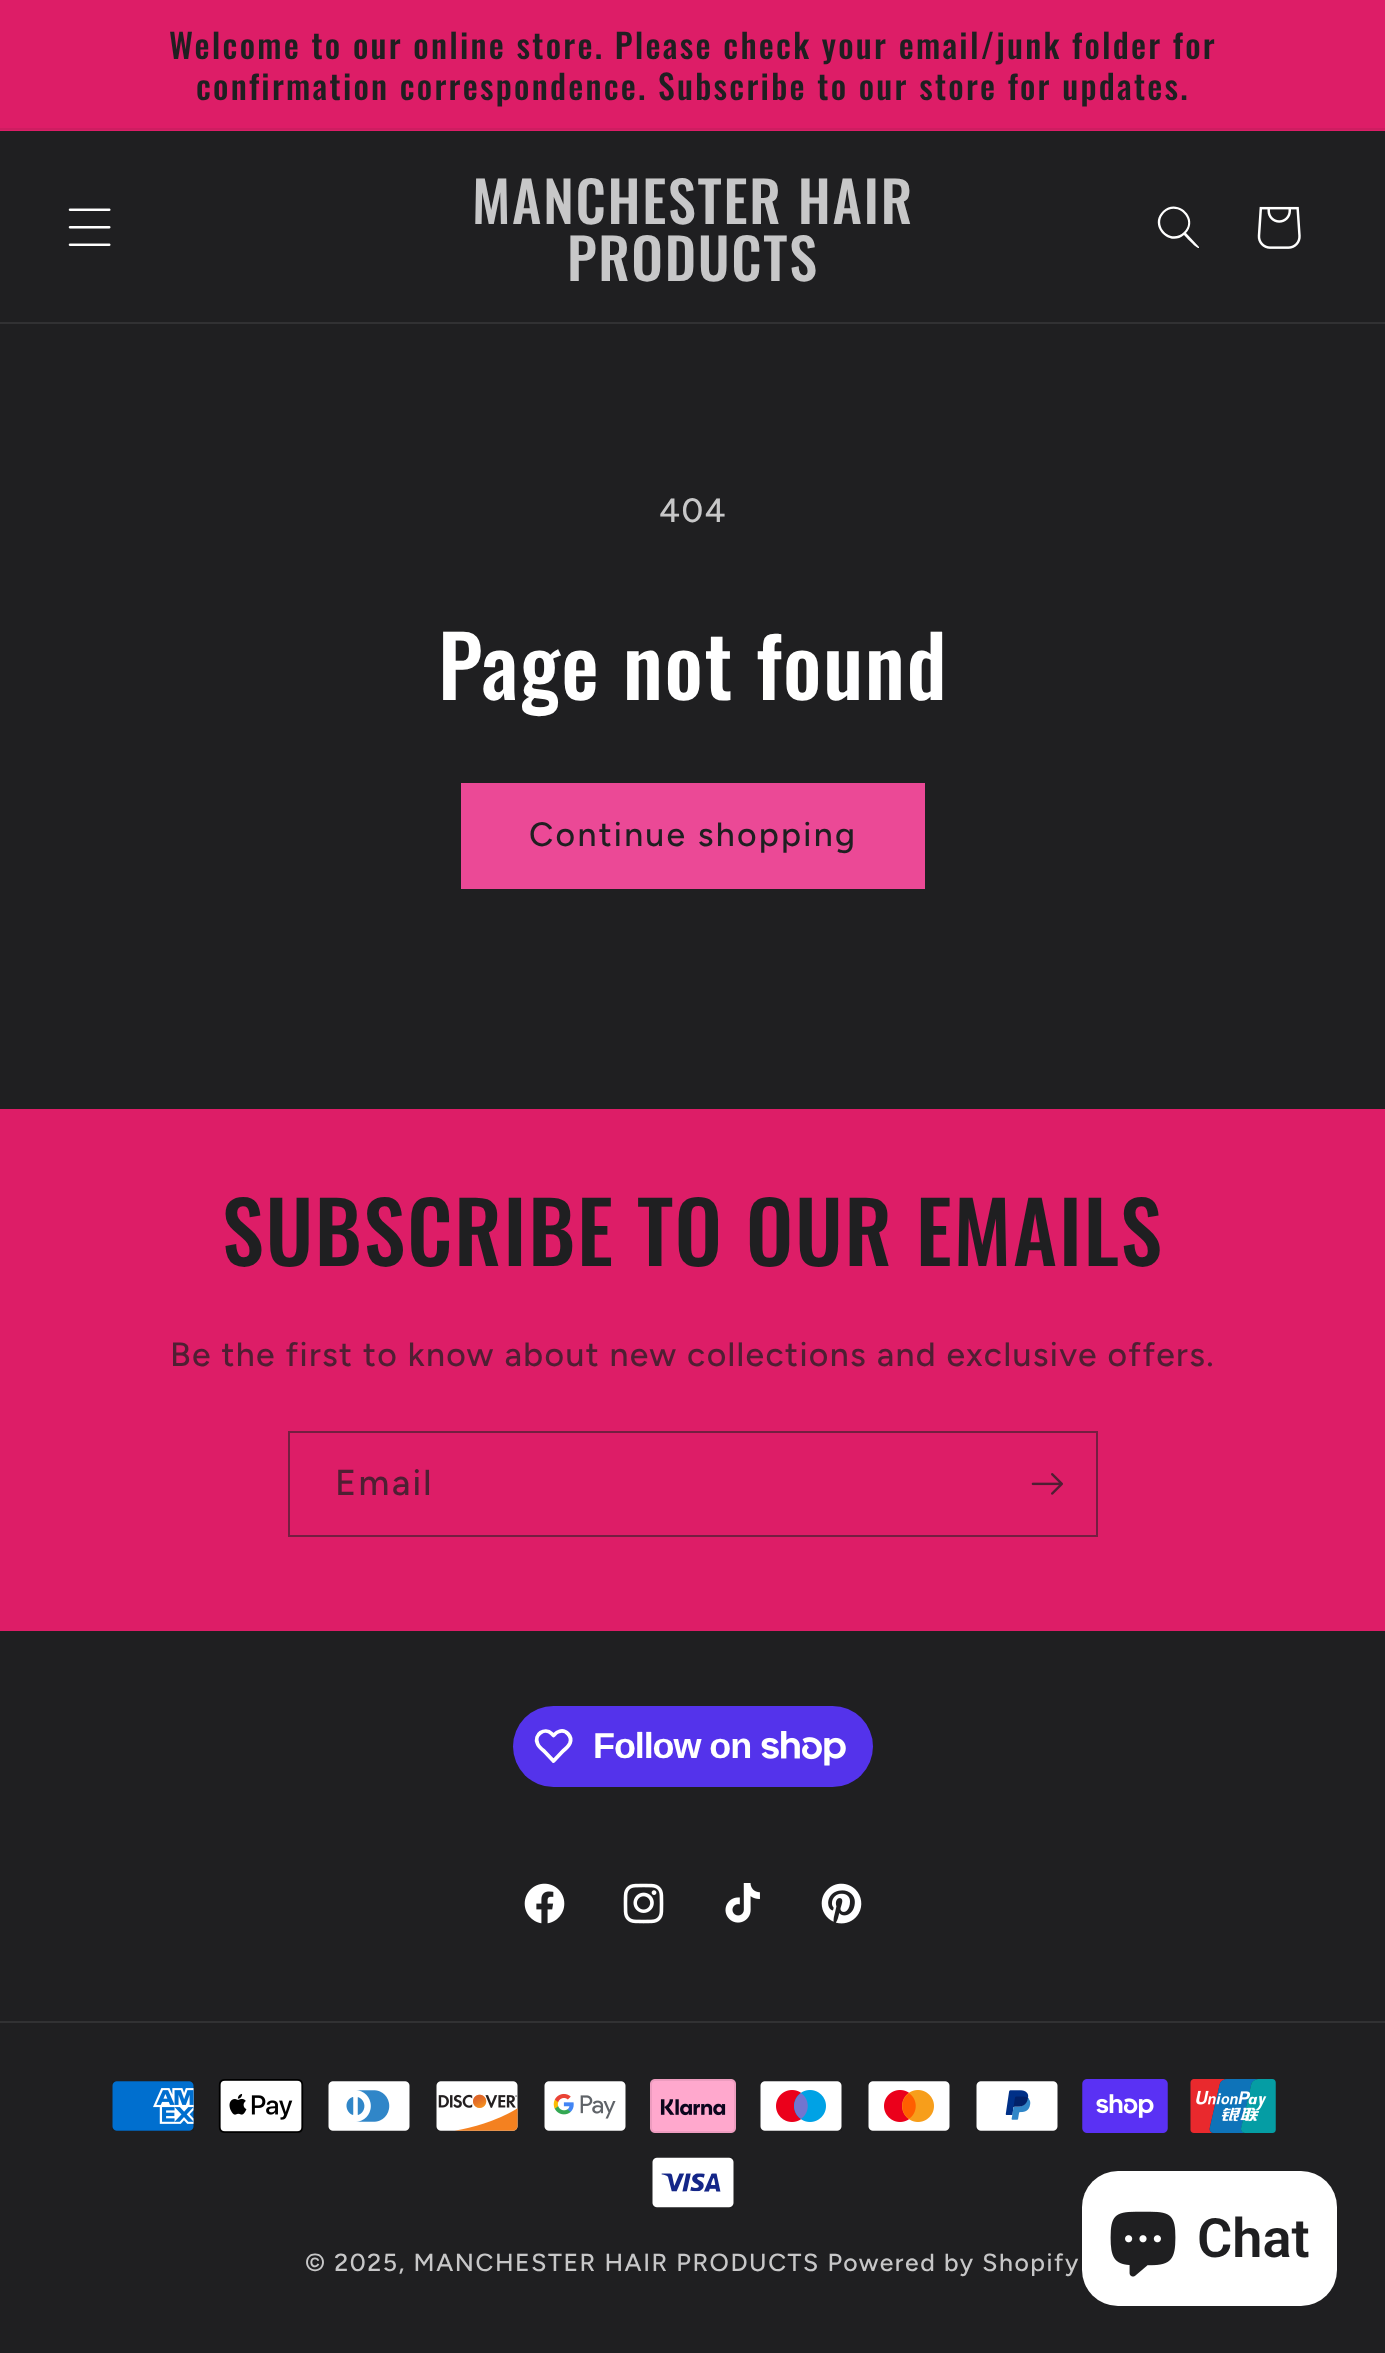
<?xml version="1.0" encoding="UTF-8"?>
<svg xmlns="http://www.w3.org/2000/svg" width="1385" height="2353">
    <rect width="100%" height="100%" fill="#1F1F21"/>
    <rect x="0" y="0" width="1385" height="131" fill="#DD1D67"/>
    <rect x="0" y="128" width="1385" height="2" fill="#CE1D61"/>
    <text x="169" y="59" font-family="Oswald" font-size="33.75" font-weight="500" letter-spacing="2.25" fill="#1F1F21">Welcome to our online store. Please check your email/junk folder for</text>
    <text x="196" y="100" font-family="Oswald" font-size="33.75" font-weight="500" letter-spacing="2.25" fill="#1F1F21">confirmation correspondence. Subscribe to our store for updates.</text>
    <rect x="0" y="322" width="1385" height="2" fill="#313133"/>
    <image x="68" y="208" width="43" height="38" href="img_01.png"/>
    <text x="472" y="224" font-family="Oswald" font-size="56.25" font-weight="500" letter-spacing="1.7" fill="#C7C7C8">MANCHESTER HAIR</text>
    <text x="567" y="281" font-family="Oswald" font-size="56.25" font-weight="500" letter-spacing="1.7" fill="#C7C7C8">PRODUCTS</text>
    <path d="M 1184 232 C 1171 245 1152 226 1164 213 C 1177 200 1197 220 1184 232 Z M 1184 235 C 1169 248 1148 225 1163 211 C 1177 197 1200 218 1186 233 L 1199 247 V 248 C 1197 249 1186 237 1184 235 Z" fill="#FFFFFF" fill-rule="evenodd"/>
    <image x="1257" y="206" width="44" height="43" href="img_02.png"/>
    <text x="659" y="522" font-family="Figtree" font-size="33.75" font-weight="500" letter-spacing="1.35" fill="#C7C7C8">404</text>
    <text x="438" y="700" font-family="Oswald" font-size="84.4" font-weight="500" letter-spacing="1.7" fill="#FFFFFF">Page not found</text>
    <rect x="461" y="783" width="464" height="106" fill="#EB4996"/>
    <text x="529" y="846" font-family="Figtree" font-size="33.75" font-weight="500" letter-spacing="2.25" fill="#1F1F21">Continue shopping</text>
    <rect x="0" y="1109" width="1385" height="522" fill="#DD1D67"/>
    <text x="222" y="1266" font-family="Oswald" font-size="84.4" font-weight="500" letter-spacing="1.7" fill="#1F1F21">SUBSCRIBE TO OUR EMAILS</text>
    <text x="170" y="1366" font-family="Figtree" font-size="33.75" font-weight="500" letter-spacing="1.35" fill="#4F1F33">Be the first to know about new collections and exclusive offers.</text>
    <rect x="289" y="1432" width="808" height="104" fill="none" stroke="#751E41" stroke-width="2"/>
    <text x="335" y="1495" font-family="Figtree" font-size="36" font-weight="500" letter-spacing="2.25" fill="#4F1F33">Email</text>
    <image x="1031" y="1473" width="32" height="22" href="img_03.png"/>
    <rect x="513" y="1706" width="360" height="81" rx="40.5" fill="#5433EB"/>
    <path d="M 551.5 1733.5 L 553.5 1735.5 C 555 1734 556.5 1732 559 1731.5 C 566 1729 572.5 1736.5 570 1743 C 568.5 1746.5 565.5 1749 563 1751 L 553.5 1761 L 544 1751 C 541.5 1749 538.5 1746.5 537.5 1743.5 C 533.5 1734.5 545 1727 551.5 1733.5 Z" fill="none" stroke="#FFFFFF" stroke-width="3.8" stroke-linejoin="round"/>
    <text x="593" y="1758" font-family="Liberation Sans" font-size="36" font-weight="700" letter-spacing="-1.1" fill="#FFFFFF">Follow on</text>
    <image x="761" y="1731" width="85" height="35" href="img_04.png"/>
    <image x="524" y="1883" width="41" height="41" href="img_05.png"/>
    <image x="623" y="1883" width="41" height="41" href="img_06.png"/>
    <image x="725" y="1883" width="35" height="40" href="img_07.png"/>
    <image x="821" y="1883" width="41" height="41" href="img_08.png"/>
    <rect x="0" y="2021" width="1385" height="2" fill="#313133"/>
    <image x="112" y="2081" width="82" height="50" href="img_09.png"/>
    <image x="218" y="2079" width="86" height="54" href="img_10.png"/>
    <image x="328" y="2081" width="82" height="50" href="img_11.png"/>
    <image x="436" y="2081" width="82" height="50" href="img_12.png"/>
    <image x="544" y="2081" width="82" height="50" href="img_13.png"/>
    <image x="650" y="2079" width="86" height="54" href="img_14.png"/>
    <image x="760" y="2081" width="82" height="50" href="img_15.png"/>
    <image x="868" y="2081" width="82" height="50" href="img_16.png"/>
    <image x="976" y="2081" width="82" height="50" href="img_17.png"/>
    <image x="1082" y="2079" width="86" height="54" href="img_18.png"/>
    <image x="1190" y="2079" width="86" height="54" href="img_19.png"/>
    <image x="652" y="2157" width="82" height="51" href="img_20.png"/>
    <text x="305" y="2271" font-family="Figtree" font-size="24.75" font-weight="500" letter-spacing="1.57" fill="#C7C7C8">© 2025, MANCHESTER HAIR PRODUCTS Powered by Shopify</text>
    <rect x="1082" y="2171" width="255" height="135" rx="36" fill="#FFFFFF"/>
    <image x="1110" y="2211" width="66" height="66" href="img_21.png"/>
    <text x="1197" y="2257" font-family="Roboto" font-size="54" font-weight="600" fill="#1F1F21">Chat</text>
</svg>
